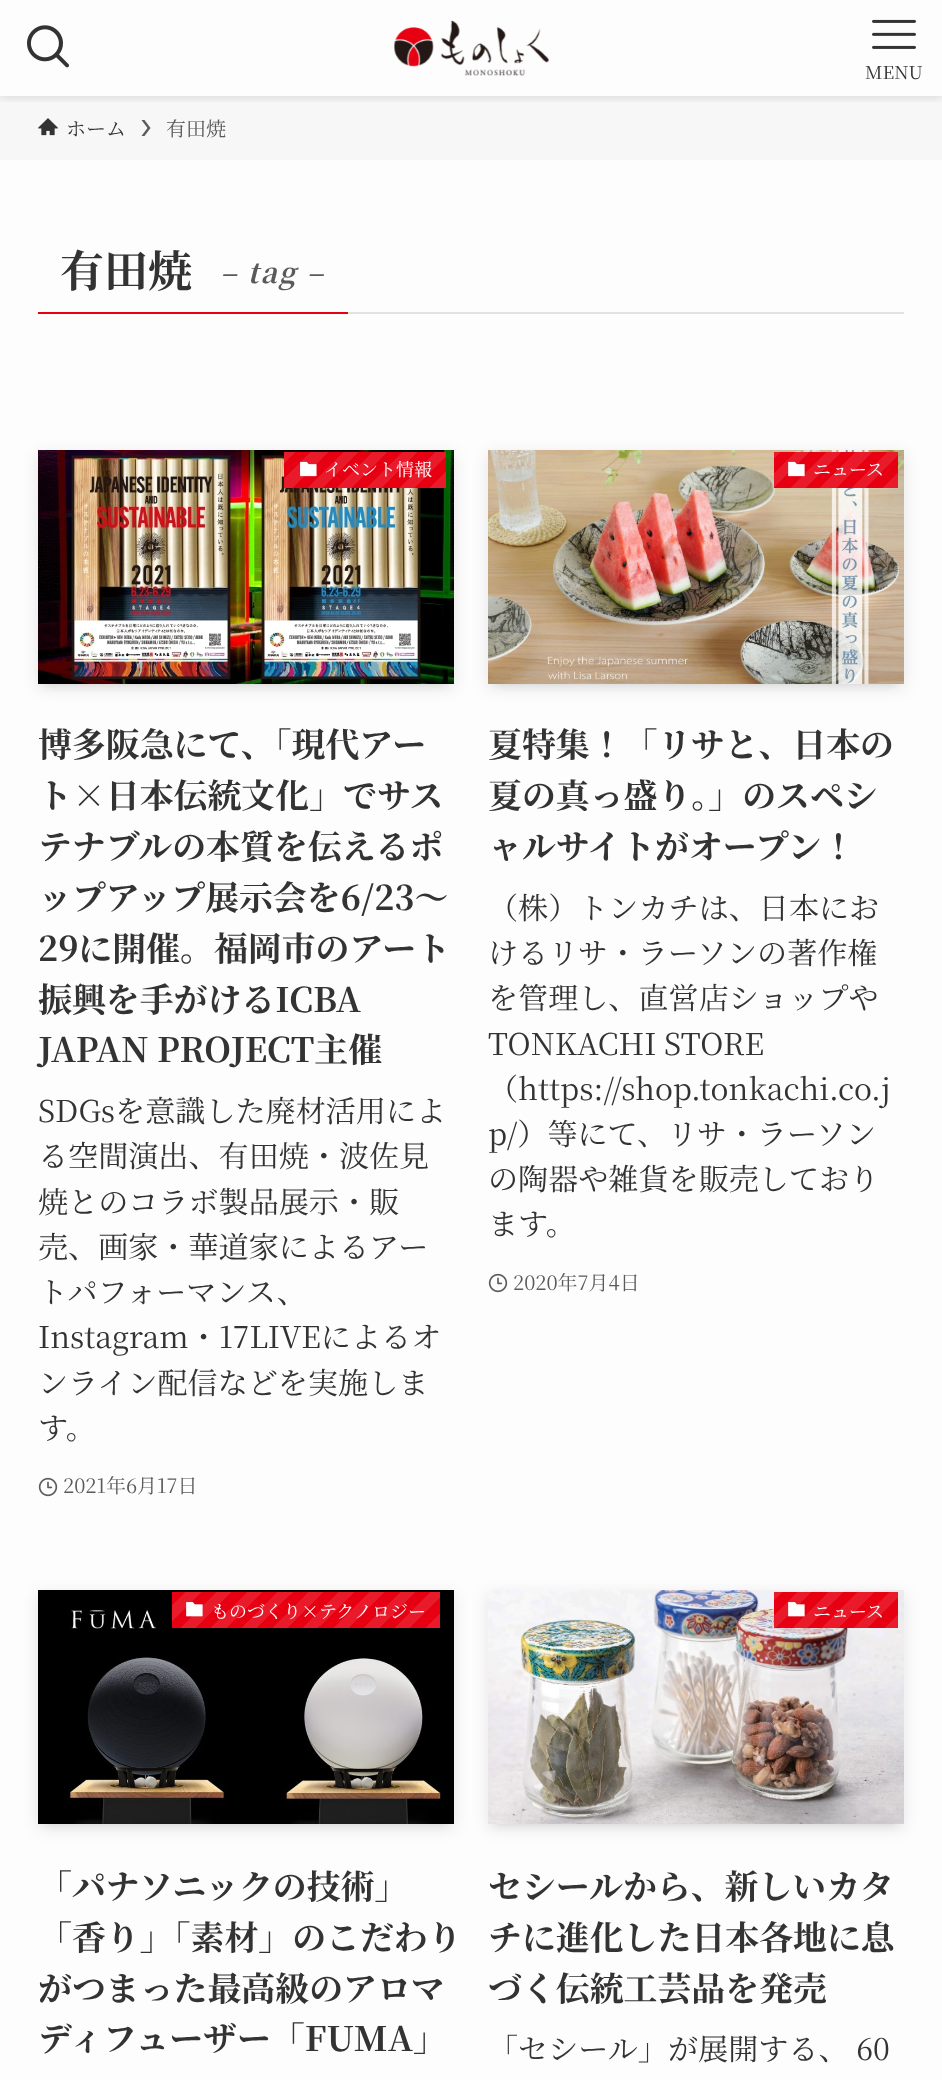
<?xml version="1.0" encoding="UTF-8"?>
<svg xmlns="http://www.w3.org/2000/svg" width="942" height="2080">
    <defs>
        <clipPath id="clip1"><rect x="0" y="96" width="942" height="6"/></clipPath>
        <filter id="blur1" x="-50%" y="-200%" width="200%" height="500%"><feGaussianBlur stdDeviation="4"/></filter>
        <filter id="blur2" x="-50%" y="-200%" width="200%" height="500%"><feGaussianBlur stdDeviation="8"/></filter>
        <linearGradient id="g1" gradientUnits="userSpaceOnUse" x1="414" y1="518" x2="307" y2="411"><stop offset="0" stop-color="#E91A2A"/><stop offset="0.07" stop-color="#E91A2A"/><stop offset="0.07" stop-color="#E60012"/><stop offset="0.14" stop-color="#E60012"/><stop offset="0.14" stop-color="#E91A2A"/><stop offset="0.21" stop-color="#E91A2A"/><stop offset="0.21" stop-color="#E60012"/><stop offset="0.29" stop-color="#E60012"/><stop offset="0.29" stop-color="#E91A2A"/><stop offset="0.36" stop-color="#E91A2A"/><stop offset="0.36" stop-color="#E60012"/><stop offset="0.43" stop-color="#E60012"/><stop offset="0.43" stop-color="#E91A2A"/><stop offset="0.5" stop-color="#E91A2A"/><stop offset="0.5" stop-color="#E60012"/><stop offset="0.57" stop-color="#E60012"/><stop offset="0.57" stop-color="#E91A2A"/><stop offset="0.64" stop-color="#E91A2A"/><stop offset="0.64" stop-color="#E60012"/><stop offset="0.71" stop-color="#E60012"/><stop offset="0.71" stop-color="#E91A2A"/><stop offset="0.79" stop-color="#E91A2A"/><stop offset="0.79" stop-color="#E60012"/><stop offset="0.86" stop-color="#E60012"/><stop offset="0.86" stop-color="#E91A2A"/><stop offset="0.93" stop-color="#E91A2A"/><stop offset="0.93" stop-color="#E60012"/><stop offset="1" stop-color="#E60012"/></linearGradient>
        <linearGradient id="g2" gradientUnits="userSpaceOnUse" x1="876" y1="509" x2="784" y2="417"><stop offset="0" stop-color="#E91A2A"/><stop offset="0.08" stop-color="#E91A2A"/><stop offset="0.08" stop-color="#E60012"/><stop offset="0.17" stop-color="#E60012"/><stop offset="0.17" stop-color="#E91A2A"/><stop offset="0.25" stop-color="#E91A2A"/><stop offset="0.25" stop-color="#E60012"/><stop offset="0.33" stop-color="#E60012"/><stop offset="0.33" stop-color="#E91A2A"/><stop offset="0.42" stop-color="#E91A2A"/><stop offset="0.42" stop-color="#E60012"/><stop offset="0.5" stop-color="#E60012"/><stop offset="0.5" stop-color="#E91A2A"/><stop offset="0.58" stop-color="#E91A2A"/><stop offset="0.58" stop-color="#E60012"/><stop offset="0.67" stop-color="#E60012"/><stop offset="0.67" stop-color="#E91A2A"/><stop offset="0.75" stop-color="#E91A2A"/><stop offset="0.75" stop-color="#E60012"/><stop offset="0.83" stop-color="#E60012"/><stop offset="0.83" stop-color="#E91A2A"/><stop offset="0.92" stop-color="#E91A2A"/><stop offset="0.92" stop-color="#E60012"/><stop offset="1" stop-color="#E60012"/></linearGradient>
        <linearGradient id="g3" gradientUnits="userSpaceOnUse" x1="381" y1="1687" x2="229" y2="1534"><stop offset="0" stop-color="#E91A2A"/><stop offset="0.05" stop-color="#E91A2A"/><stop offset="0.05" stop-color="#E60012"/><stop offset="0.1" stop-color="#E60012"/><stop offset="0.1" stop-color="#E91A2A"/><stop offset="0.15" stop-color="#E91A2A"/><stop offset="0.15" stop-color="#E60012"/><stop offset="0.2" stop-color="#E60012"/><stop offset="0.2" stop-color="#E91A2A"/><stop offset="0.25" stop-color="#E91A2A"/><stop offset="0.25" stop-color="#E60012"/><stop offset="0.3" stop-color="#E60012"/><stop offset="0.3" stop-color="#E91A2A"/><stop offset="0.35" stop-color="#E91A2A"/><stop offset="0.35" stop-color="#E60012"/><stop offset="0.4" stop-color="#E60012"/><stop offset="0.4" stop-color="#E91A2A"/><stop offset="0.45" stop-color="#E91A2A"/><stop offset="0.45" stop-color="#E60012"/><stop offset="0.5" stop-color="#E60012"/><stop offset="0.5" stop-color="#E91A2A"/><stop offset="0.55" stop-color="#E91A2A"/><stop offset="0.55" stop-color="#E60012"/><stop offset="0.6" stop-color="#E60012"/><stop offset="0.6" stop-color="#E91A2A"/><stop offset="0.65" stop-color="#E91A2A"/><stop offset="0.65" stop-color="#E60012"/><stop offset="0.7" stop-color="#E60012"/><stop offset="0.7" stop-color="#E91A2A"/><stop offset="0.75" stop-color="#E91A2A"/><stop offset="0.75" stop-color="#E60012"/><stop offset="0.8" stop-color="#E60012"/><stop offset="0.8" stop-color="#E91A2A"/><stop offset="0.85" stop-color="#E91A2A"/><stop offset="0.85" stop-color="#E60012"/><stop offset="0.9" stop-color="#E60012"/><stop offset="0.9" stop-color="#E91A2A"/><stop offset="0.95" stop-color="#E91A2A"/><stop offset="0.95" stop-color="#E60012"/><stop offset="1" stop-color="#E60012"/></linearGradient>
        <linearGradient id="g4" gradientUnits="userSpaceOnUse" x1="876" y1="1651" x2="784" y2="1559"><stop offset="0" stop-color="#E91A2A"/><stop offset="0.08" stop-color="#E91A2A"/><stop offset="0.08" stop-color="#E60012"/><stop offset="0.17" stop-color="#E60012"/><stop offset="0.17" stop-color="#E91A2A"/><stop offset="0.25" stop-color="#E91A2A"/><stop offset="0.25" stop-color="#E60012"/><stop offset="0.33" stop-color="#E60012"/><stop offset="0.33" stop-color="#E91A2A"/><stop offset="0.42" stop-color="#E91A2A"/><stop offset="0.42" stop-color="#E60012"/><stop offset="0.5" stop-color="#E60012"/><stop offset="0.5" stop-color="#E91A2A"/><stop offset="0.58" stop-color="#E91A2A"/><stop offset="0.58" stop-color="#E60012"/><stop offset="0.67" stop-color="#E60012"/><stop offset="0.67" stop-color="#E91A2A"/><stop offset="0.75" stop-color="#E91A2A"/><stop offset="0.75" stop-color="#E60012"/><stop offset="0.83" stop-color="#E60012"/><stop offset="0.83" stop-color="#E91A2A"/><stop offset="0.92" stop-color="#E91A2A"/><stop offset="0.92" stop-color="#E60012"/><stop offset="1" stop-color="#E60012"/></linearGradient>
    </defs>
    <rect width="100%" height="100%" fill="#FDFDFD"/>
    <rect x="0" y="96" width="942" height="64" fill="#F7F7F7"/>
    <g clip-path="url(#clip1)">
        <rect x="0" y="2" width="942" height="96" fill="#000000" fill-opacity="0.12" filter="url(#blur1)"/>
    </g>
    <image x="27" y="25" width="43" height="43" href="img_01.png"/>
    <image x="394" y="20" width="155" height="56" href="img_02.png"/>
    <image x="872" y="19" width="44" height="30" href="img_03.png"/>
    <text x="865" y="79" font-family="Noto Serif JP" font-size="18" fill="#333333">MENU</text>
    <image x="38" y="118" width="20" height="18" href="img_04.png"/>
    <text x="66" y="136" font-family="Noto Serif JP" font-size="20" fill="#333333">ホーム</text>
    <path d="M 144.5 120 H 141.5 L 147.5 128 L 141.5 136 H 144.5 L 150.5 128 Z" fill="#5A5A5A"/>
    <text x="166" y="136" font-family="Noto Serif JP" font-size="20" fill="#5A5A5A">有田焼</text>
    <rect x="348" y="312" width="556" height="2" fill="#E2E2E2"/>
    <rect x="38" y="312" width="310" height="2" fill="#E60012"/>
    <text x="60" y="287" font-family="Noto Serif JP" font-size="44" font-weight="700" fill="#333333">有田焼</text>
    <text x="220" y="283" font-family="Noto Serif JP" font-size="28" font-weight="700" font-style="italic" letter-spacing="2" fill="#5A5A5A">– tag –</text>
    <rect x="46" y="466" width="400" height="218" fill="#000000" fill-opacity="0.1" filter="url(#blur1)"/>
    <rect x="38" y="454" width="416" height="234" fill="#000000" fill-opacity="0.1" filter="url(#blur2)"/>
    <image x="38" y="450" width="416" height="234" href="img_05.png"/>
    <rect x="284" y="452" width="162" height="36" fill="url(#g1)"/>
    <image x="300" y="461" width="17" height="16" href="img_06.png"/>
    <text x="324" y="476" font-family="Noto Serif JP" font-size="18" fill="#FFFFFF">イベント情報</text>
    <text font-family="Noto Serif JP" font-size="33.9" font-weight="700" fill="#333333">
        <tspan x="38" y="757">博多阪急にて、「現代アー</tspan>
        <tspan x="38" y="808">ト×日本伝統文化」でサス</tspan>
        <tspan x="38" y="859">テナブルの本質を伝えるポ</tspan>
        <tspan x="38" y="910">ップアップ展示会を6/23〜</tspan>
        <tspan x="38" y="961">29に開催。福岡市のアート</tspan>
        <tspan x="38" y="1012">振興を手がけるICBA</tspan>
        <tspan x="38" y="1062">JAPAN PROJECT主催</tspan>
    </text>
    <text font-family="Noto Serif JP" font-size="30.1" fill="#333333">
        <tspan x="38" y="1122">SDGsを意識した廃材活用によ</tspan>
        <tspan x="38" y="1167">る空間演出、有田焼・波佐見</tspan>
        <tspan x="38" y="1213">焼とのコラボ製品展示・販</tspan>
        <tspan x="38" y="1258">売、画家・華道家によるアー</tspan>
        <tspan x="38" y="1303">トパフォーマンス、</tspan>
        <tspan x="38" y="1348">Instagram・17LIVEによるオ</tspan>
        <tspan x="38" y="1394">ンライン配信などを実施しま</tspan>
        <tspan x="38" y="1439">す。</tspan>
    </text>
    <image x="38" y="1477" width="20" height="20" href="img_07.png"/>
    <text x="63" y="1493" font-family="Noto Serif JP" font-size="20" fill="#5A5A5A">2021年6月17日</text>
    <rect x="496" y="466" width="400" height="218" fill="#000000" fill-opacity="0.1" filter="url(#blur1)"/>
    <rect x="488" y="454" width="416" height="234" fill="#000000" fill-opacity="0.1" filter="url(#blur2)"/>
    <image x="488" y="450" width="416" height="234" href="img_08.png"/>
    <rect x="774" y="452" width="124" height="36" fill="url(#g2)"/>
    <image x="788" y="461" width="17" height="16" href="img_09.png"/>
    <text x="813" y="476" font-family="Noto Serif JP" font-size="18" fill="#FFFFFF">ニュース</text>
    <text font-family="Noto Serif JP" font-size="33.9" font-weight="700" fill="#333333">
        <tspan x="488" y="757">夏特集！「リサと、日本の</tspan>
        <tspan x="488" y="808">夏の真っ盛り。」のスペシ</tspan>
        <tspan x="488" y="859">ャルサイトがオープン！</tspan>
    </text>
    <text font-family="Noto Serif JP" font-size="30.1" fill="#333333">
        <tspan x="488" y="919">（株）トンカチは、日本にお</tspan>
        <tspan x="488" y="964">けるリサ・ラーソンの著作権</tspan>
        <tspan x="488" y="1009">を管理し、直営店ショップや</tspan>
        <tspan x="488" y="1055">TONKACHI STORE</tspan>
        <tspan x="488" y="1100">（https://shop.tonkachi.co.j</tspan>
        <tspan x="488" y="1145">p/）等にて、リサ・ラーソン</tspan>
        <tspan x="488" y="1190">の陶器や雑貨を販売しており</tspan>
        <tspan x="488" y="1235">ます。</tspan>
    </text>
    <image x="488" y="1273" width="20" height="20" href="img_07.png"/>
    <text x="513" y="1290" font-family="Noto Serif JP" font-size="20" fill="#5A5A5A">2020年7月4日</text>
    <rect x="46" y="1606" width="400" height="218" fill="#000000" fill-opacity="0.1" filter="url(#blur1)"/>
    <rect x="38" y="1594" width="416" height="234" fill="#000000" fill-opacity="0.1" filter="url(#blur2)"/>
    <image x="38" y="1590" width="416" height="234" href="img_10.png"/>
    <rect x="172" y="1592" width="268" height="36" fill="url(#g3)"/>
    <image x="186" y="1602" width="17" height="15" href="img_11.png"/>
    <text x="211" y="1618" font-family="Noto Serif JP" font-size="18" fill="#FFFFFF">ものづくり×テクノロジー</text>
    <text font-family="Noto Serif JP" font-size="33.9" font-weight="700" fill="#333333">
        <tspan x="38" y="1899">「パナソニックの技術」</tspan>
        <tspan x="38" y="1950">「香り」「素材」のこだわり</tspan>
        <tspan x="38" y="2001">がつまった最高級のアロマ</tspan>
        <tspan x="38" y="2051">ディフューザー「FUMA」</tspan>
    </text>
    <rect x="496" y="1606" width="400" height="218" fill="#000000" fill-opacity="0.1" filter="url(#blur1)"/>
    <rect x="488" y="1594" width="416" height="234" fill="#000000" fill-opacity="0.1" filter="url(#blur2)"/>
    <image x="488" y="1590" width="416" height="234" href="img_12.png"/>
    <rect x="774" y="1592" width="124" height="36" fill="url(#g4)"/>
    <image x="788" y="1602" width="17" height="15" href="img_13.png"/>
    <text x="813" y="1618" font-family="Noto Serif JP" font-size="18" fill="#FFFFFF">ニュース</text>
    <text font-family="Noto Serif JP" font-size="33.9" font-weight="700" fill="#333333">
        <tspan x="488" y="1899">セシールから、新しいカタ</tspan>
        <tspan x="488" y="1950">チに進化した日本各地に息</tspan>
        <tspan x="488" y="2001">づく伝統工芸品を発売</tspan>
    </text>
    <text x="488" y="2060" font-family="Noto Serif JP" font-size="30.1" fill="#333333">「セシール」が展開する、 60</text>
</svg>
